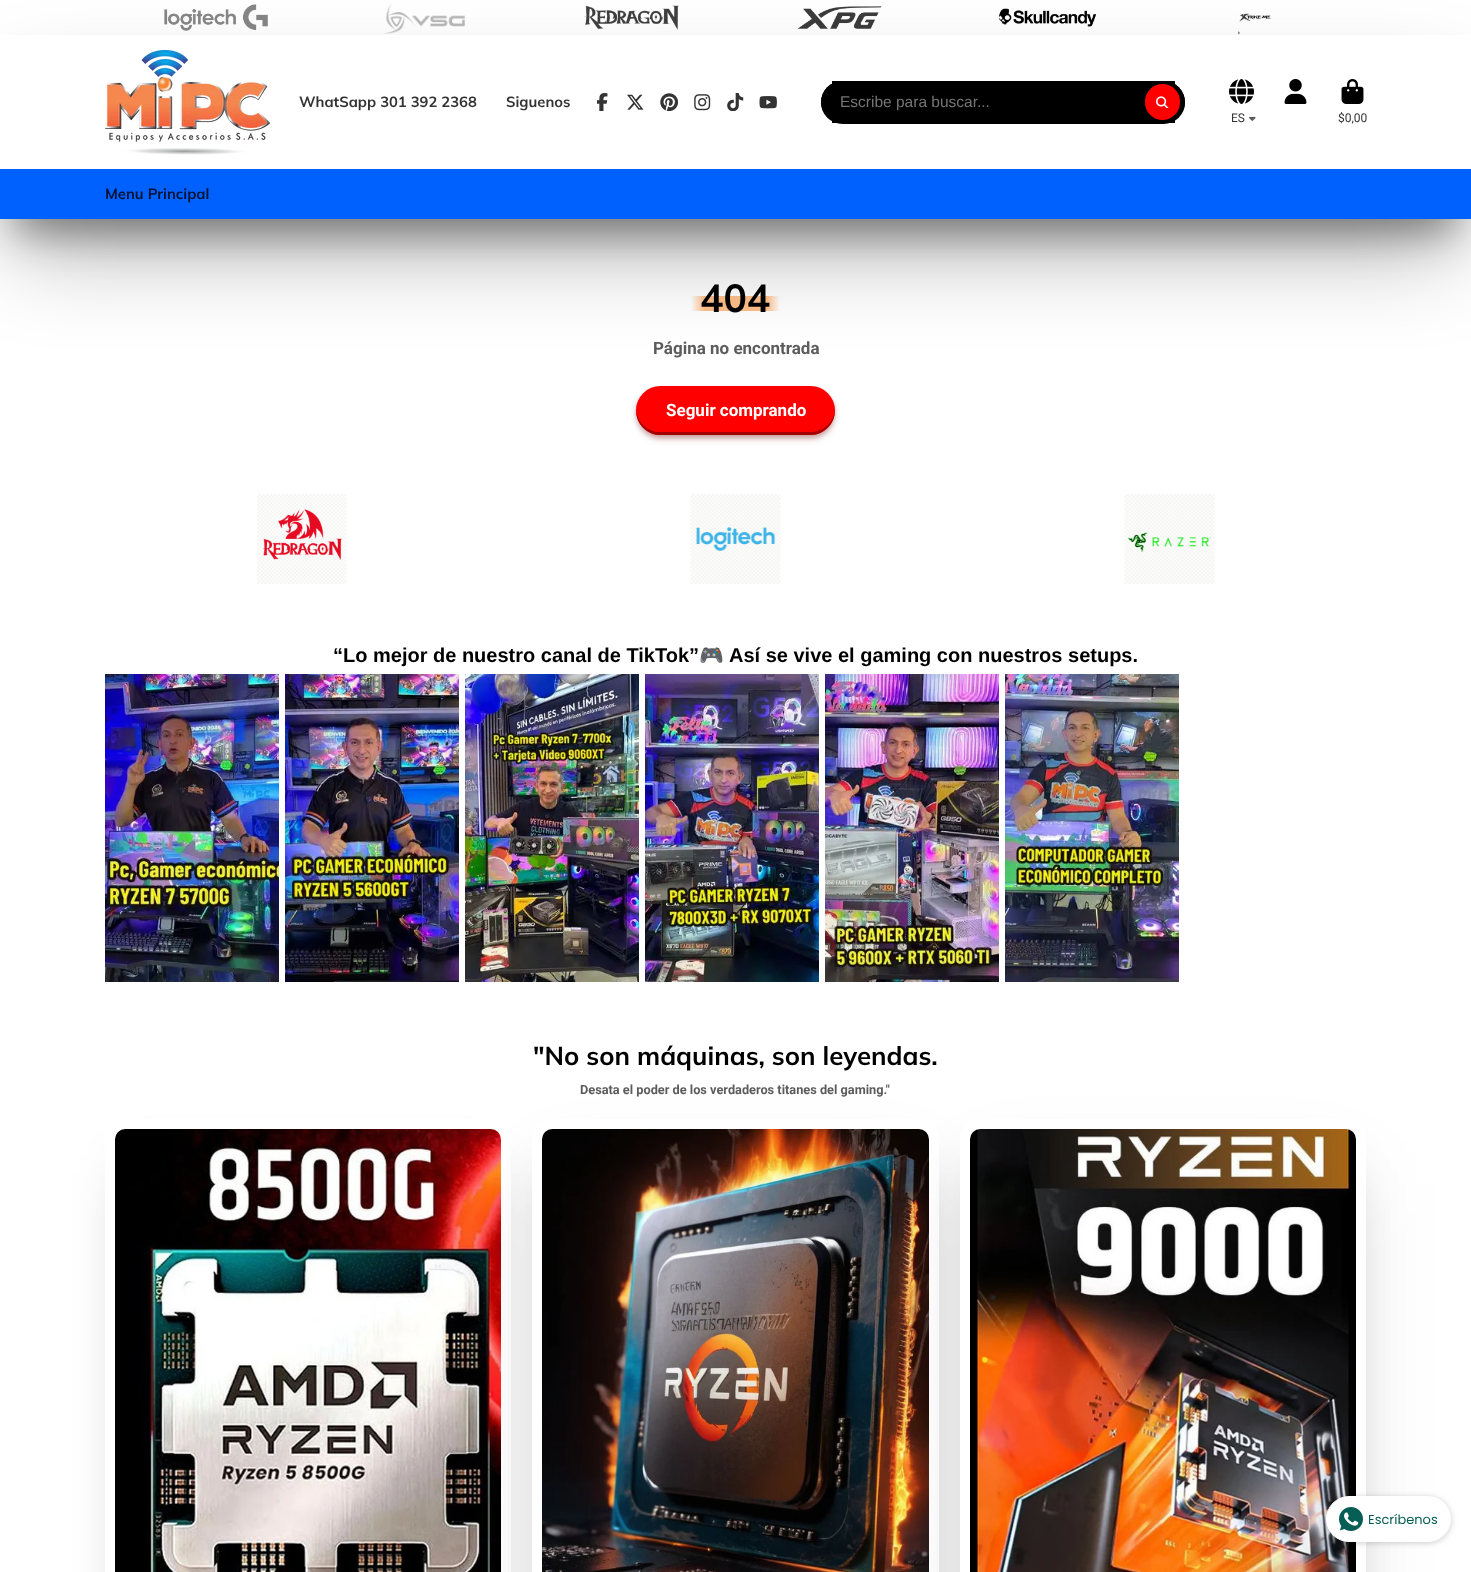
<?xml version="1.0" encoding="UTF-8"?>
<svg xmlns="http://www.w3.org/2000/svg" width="1471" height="1572">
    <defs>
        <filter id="blur1" x="-50%" y="-200%" width="200%" height="500%"><feGaussianBlur stdDeviation="20"/></filter>
        <linearGradient id="g1" gradientUnits="userSpaceOnUse" x1="691" y1="304" x2="780" y2="304"><stop offset="0" stop-color="#FFFFFF"/><stop offset="0.15" stop-color="#FEBF8A"/><stop offset="0.85" stop-color="#FEBF8A"/><stop offset="1" stop-color="#FFFFFF"/></linearGradient>
        <filter id="blur2" x="-50%" y="-200%" width="200%" height="500%"><feGaussianBlur stdDeviation="5"/></filter>
        <filter id="blur3" x="-50%" y="-200%" width="200%" height="500%"><feGaussianBlur stdDeviation="2.5"/></filter>
        <filter id="blur4" x="-50%" y="-200%" width="200%" height="500%"><feGaussianBlur stdDeviation="46"/></filter>
        <clipPath id="clip1"><path d="M 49 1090 H 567 V 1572 H 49 Z M 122 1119 H 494 C 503.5 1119 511 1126.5 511 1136 V 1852 C 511 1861.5 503.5 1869 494 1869 H 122 C 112.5 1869 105 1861.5 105 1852 V 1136 C 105 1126.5 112.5 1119 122 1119 Z" clip-rule="evenodd"/></clipPath>
        <filter id="blur5" x="-50%" y="-200%" width="200%" height="500%"><feGaussianBlur stdDeviation="27.5"/></filter>
        <filter id="blur6" x="-50%" y="-200%" width="200%" height="500%"><feGaussianBlur stdDeviation="3"/></filter>
    </defs>
    <rect width="100%" height="100%" fill="#FFFFFF"/>
    <image x="164" y="4" width="104" height="27" href="img_01.png"/>
    <image x="383" y="3" width="82" height="31" href="img_02.png"/>
    <image x="584" y="5" width="95" height="25" href="img_03.png"/>
    <image x="797" y="6" width="85" height="23" href="img_04.png"/>
    <image x="998" y="8" width="98" height="19" href="img_05.png"/>
    <image x="1238" y="13" width="34" height="22" href="img_06.png"/>
    <rect x="15" y="77" width="1441" height="155" fill="#000000" fill-opacity="0.4" filter="url(#blur1)"/>
    <rect x="691" y="296" width="89" height="15" fill="url(#g1)"/>
    <rect x="639" y="394" width="193" height="44" rx="22" fill="#660000" fill-opacity="0.15" filter="url(#blur2)"/>
    <rect x="636" y="389" width="199" height="49" rx="24.5" fill="#660000" fill-opacity="0.3" filter="url(#blur3)"/>
    <rect x="636" y="386" width="199" height="49" rx="24.5" fill="#FF0000"/>
    <rect x="15" y="96" width="1441" height="154" fill="#000000" fill-opacity="0.3" filter="url(#blur4)"/>
    <rect x="0" y="35" width="1471" height="134" fill="#FFFFFF"/>
    <image x="105" y="50" width="165" height="105" href="img_07.png"/>
    <text x="299" y="107" font-family="Muli" font-size="14.75" font-weight="700" fill="#333333">WhatSapp 301 392 2368</text>
    <text x="506" y="107" font-family="Muli" font-size="14.75" font-weight="700" fill="#333333">Siguenos</text>
    <image x="596" y="93" width="12" height="18" href="img_08.png"/>
    <image x="627" y="94" width="17" height="16" href="img_09.png"/>
    <image x="660" y="93" width="18" height="18" href="img_10.png"/>
    <image x="694" y="94" width="17" height="17" href="img_11.png"/>
    <image x="727" y="93" width="17" height="18" href="img_12.png"/>
    <image x="759" y="96" width="18" height="13" href="img_13.png"/>
    <rect x="821" y="81" width="364" height="42" rx="21" fill="#000000"/>
    <rect x="832" y="81" width="343" height="42" fill="#000000"/>
    <rect x="821" y="81" width="364" height="43" rx="21.5" fill="#000000"/>
    <text x="840" y="107" font-family="Liberation Sans" font-size="15.5" fill="#757575">Escribe para buscar...</text>
    <rect x="1145" y="84" width="35" height="36" rx="17.5" fill="#FF0000"/>
    <image x="1156" y="96" width="13" height="12" href="img_14.png"/>
    <image x="1284" y="79" width="23" height="25" href="img_15.png"/>
    <image x="1229" y="79" width="25" height="25" href="img_16.png"/>
    <text x="1231" y="122" font-family="Roboto" font-size="12" fill="#333333">ES</text>
    <image x="1249" y="116" width="7" height="5" href="img_17.png"/>
    <image x="1341" y="79" width="23" height="25" href="img_18.png"/>
    <text x="1338" y="122" font-family="Roboto" font-size="12" fill="#333333">$0,00</text>
    <rect x="0" y="169" width="1471" height="50" fill="#0061FF"/>
    <text x="105" y="199" font-family="Muli" font-size="14.75" font-weight="700" fill="#001333">Menu Principal</text>
    <text x="700" y="312" font-family="Muli" font-size="39" font-weight="700" fill="#000000">404</text>
    <text x="653" y="354" font-family="Roboto" font-size="17" font-weight="700" fill="#5C5C5C">Página no encontrada</text>
    <path d="M 636 409 V 410 C 636 424 647 435 660 435 H 810 C 824 435 835 424 835 410 V 409 C 834 422 824 432 810 432 H 660 C 647 432 637 422 636 409 Z" fill="#A30000"/>
    <text x="666" y="416" font-family="Roboto" font-size="17" font-weight="700" fill="#FFFFFF">Seguir comprando</text>
    <image x="257" y="494" width="90" height="90" href="img_19.png"/>
    <image x="690" y="494" width="91" height="90" href="img_20.png"/>
    <image x="1124" y="494" width="91" height="90" href="img_21.png"/>
    <text x="333" y="662" font-family="Liberation Sans" font-size="20" font-weight="700" fill="#000000">“Lo mejor de nuestro canal de TikTok”</text>
    <text x="699" y="662" font-family="Noto Color Emoji" font-size="20" font-weight="700" fill="#000000">🎮</text>
    <text x="729" y="662" font-family="Liberation Sans" font-size="20" font-weight="700" fill="#000000">Así se vive el gaming con nuestros setups.</text>
    <image x="105" y="674" width="174" height="308" href="img_22.png"/>
    <image x="285" y="674" width="174" height="308" href="img_23.png"/>
    <image x="465" y="674" width="174" height="308" href="img_24.png"/>
    <image x="645" y="674" width="174" height="308" href="img_25.png"/>
    <image x="825" y="674" width="174" height="308" href="img_26.png"/>
    <image x="1005" y="674" width="174" height="308" href="img_27.png"/>
    <g clip-path="url(#clip1)">
        <rect x="133" y="1174" width="350" height="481" fill="#000000" fill-opacity="0.3" filter="url(#blur5)"/>
    </g>
    <image x="115" y="1129" width="386" height="443" href="img_28.png"/>
    <rect x="560" y="1174" width="351" height="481" fill="#000000" fill-opacity="0.3" filter="url(#blur5)"/>
    <rect x="550" y="1183" width="371" height="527" fill="#000000" fill-opacity="0.1" filter="url(#blur4)"/>
    <rect x="532" y="1119" width="407" height="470" rx="17" fill="#FFFFFF"/>
    <image x="542" y="1129" width="387" height="443" href="img_29.png"/>
    <rect x="988" y="1174" width="350" height="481" fill="#000000" fill-opacity="0.3" filter="url(#blur5)"/>
    <rect x="978" y="1183" width="370" height="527" fill="#000000" fill-opacity="0.1" filter="url(#blur4)"/>
    <rect x="960" y="1119" width="406" height="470" rx="17" fill="#FFFFFF"/>
    <image x="970" y="1129" width="386" height="443" href="img_30.png"/>
    <text x="533" y="1065" font-family="Muli" font-size="25.75" font-weight="700" fill="#000000">"No son máquinas, son leyendas.</text>
    <text x="580" y="1094" font-family="Roboto" font-size="12.75" font-weight="700" fill="#5C5C5C">Desata el poder de los verdaderos titanes del gaming."</text>
    <rect x="1326" y="1497" width="125" height="46" rx="23" fill="#1B1B1B" fill-opacity="0.2" filter="url(#blur6)"/>
    <rect x="1326.5" y="1496.5" width="124" height="45" rx="22.5" fill="#FFFFFF" stroke="#FFFFFF"/>
    <image x="1339" y="1507" width="24" height="24" href="img_31.png"/>
    <text x="1368" y="1524" font-family="Poppins" font-size="13" fill="#075E54">Escríbenos</text>
</svg>
